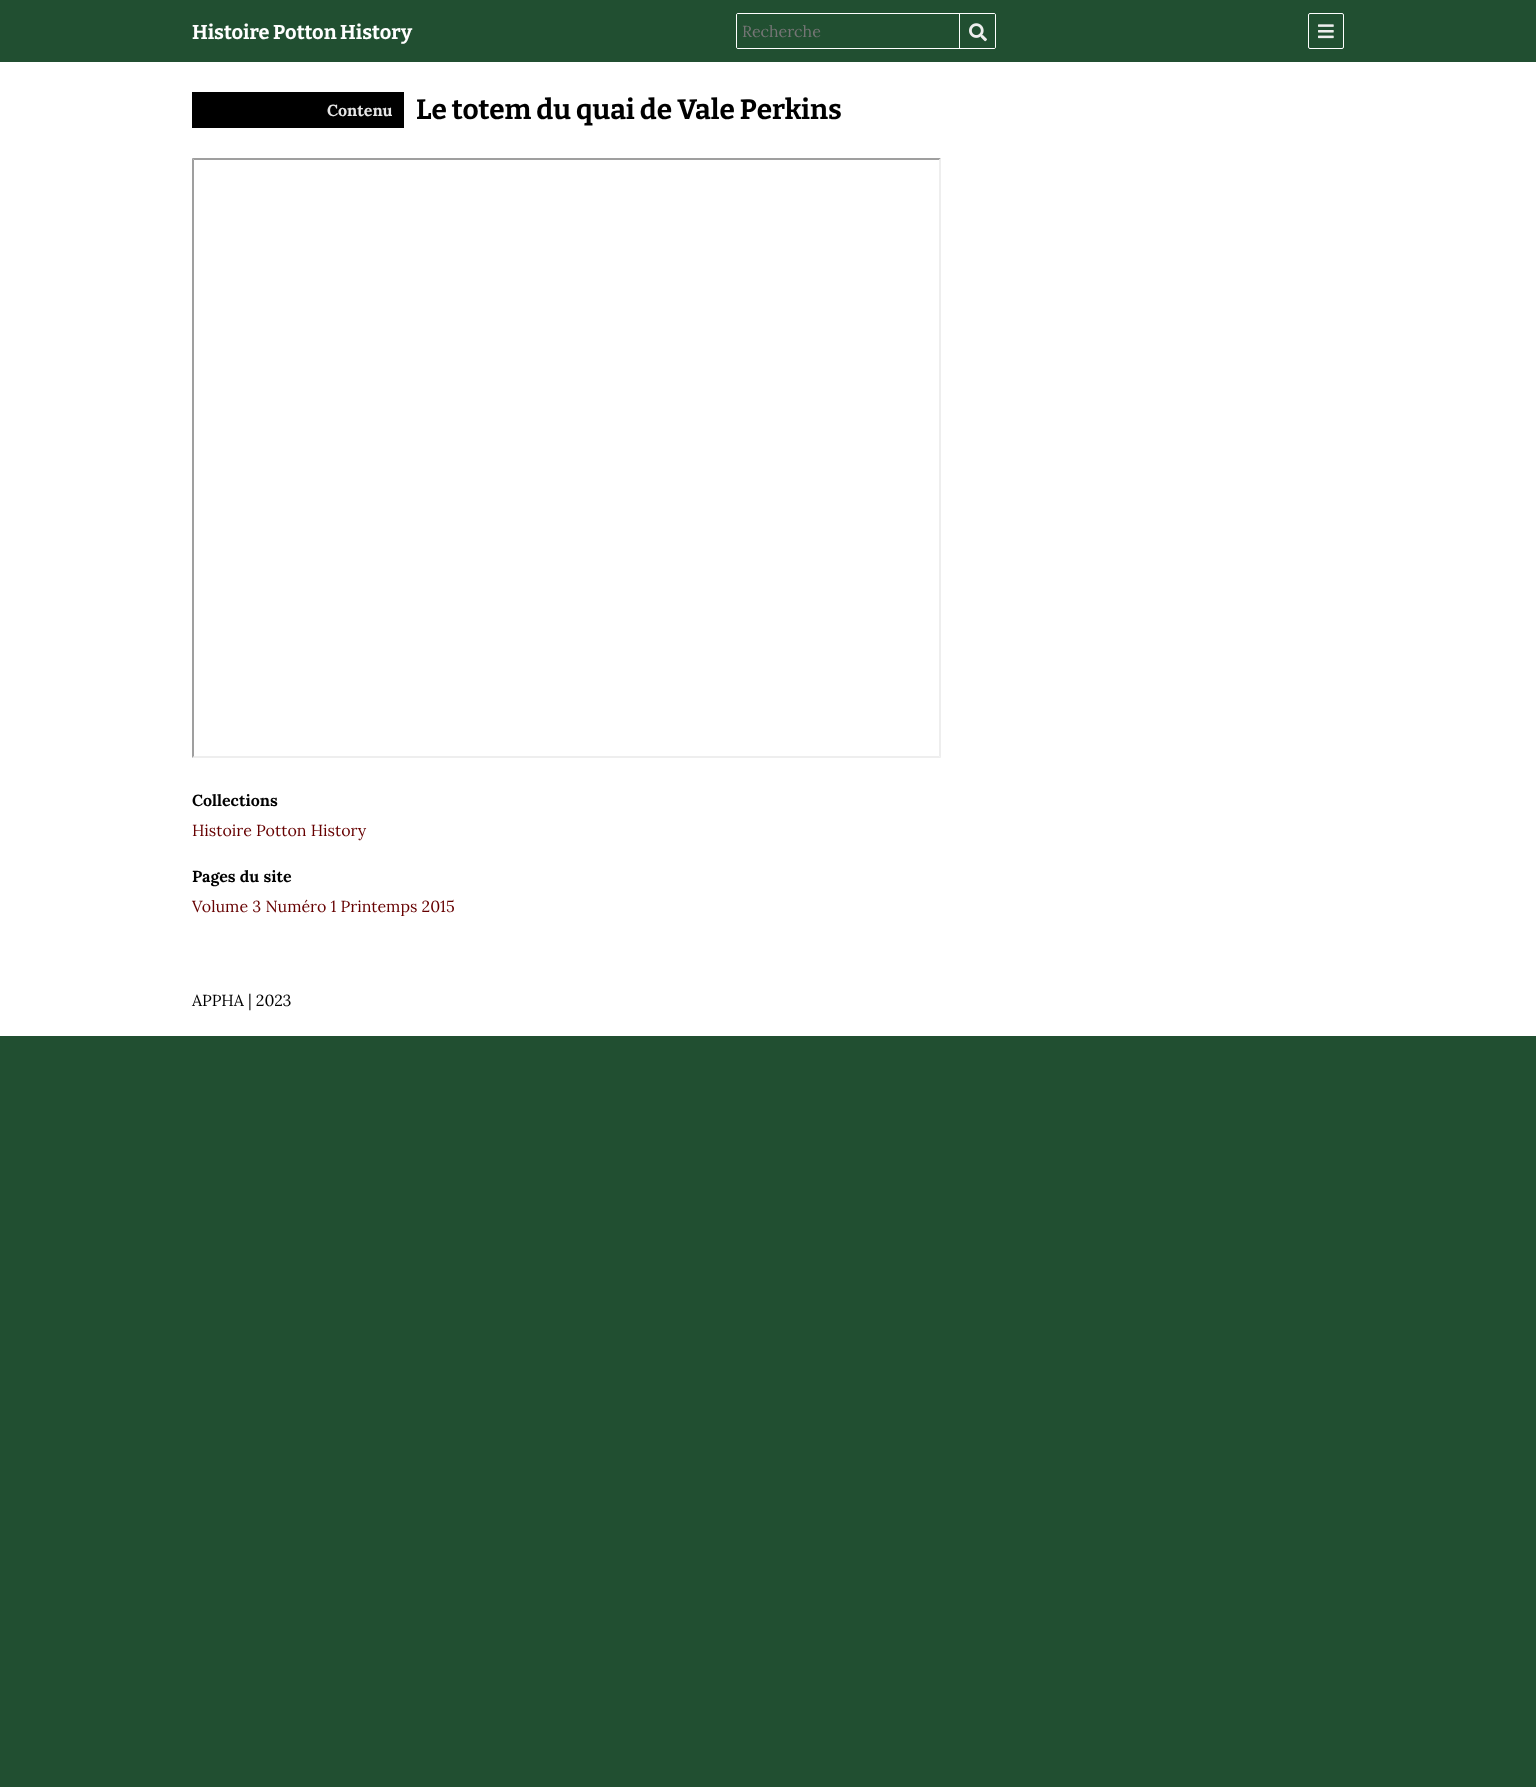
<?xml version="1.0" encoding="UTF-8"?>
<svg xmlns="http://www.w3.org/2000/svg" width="1536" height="1787">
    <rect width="100%" height="100%" fill="#214F31"/>
    <text x="192" y="39" font-family="Bitter" font-size="20" font-weight="100" fill="#FFFFFF">Histoire Potton History</text>
    <rect x="736.5" y="13.5" width="259" height="35" rx="1.5" fill="none" stroke="#FFFFFF"/>
    <path d="M 738 14 H 959 V 48 H 738 C 737.5 48 737 47.5 737 47 V 15 C 737 14.5 737.5 14 738 14 Z" fill="#214F31"/>
    <text x="742" y="37" font-family="Lora" font-size="16" fill="#757575">Recherche</text>
    <path d="M 960 14 H 994 C 994.5 14 995 14.5 995 15 V 47 C 995 47.5 994.5 48 994 48 H 960 Z" fill="#214F31"/>
    <rect x="959" y="14" width="1" height="34" fill="#FFFFFF"/>
    <image x="969" y="23" width="18" height="19" href="img_01.png"/>
    <rect x="1308.5" y="13.5" width="35" height="35" rx="1.5" fill="none" stroke="#FFFFFF"/>
    <image x="1318" y="24" width="16" height="15" href="img_02.png"/>
    <rect x="0" y="62" width="1536" height="974" fill="#FFFFFF"/>
    <rect x="192" y="92" width="212" height="36" fill="#000000"/>
    <text x="327" y="116" font-family="Lora" font-size="16" font-weight="700" fill="#E7E7E7">Contenu</text>
    <text x="416" y="119" font-family="Bitter" font-size="28" font-weight="100" fill="#000000">Le totem du quai de Vale Perkins</text>
    <path d="M 192 158 H 941 L 939 160 H 194 Z" fill="#9F9F9F"/>
    <path d="M 941 158 V 758 L 939 756 V 160 Z" fill="#EEEEEE"/>
    <path d="M 941 758 H 192 L 194 756 H 939 Z" fill="#EEEEEE"/>
    <path d="M 192 758 V 158 L 194 160 V 756 Z" fill="#9F9F9F"/>
    <text x="192" y="806" font-family="Lora" font-size="16" font-weight="700" fill="#000000">Collections</text>
    <text x="192" y="836" font-family="Lora" font-size="16" fill="#660000">Histoire Potton History</text>
    <text x="192" y="882" font-family="Lora" font-size="16" font-weight="700" fill="#000000">Pages du site</text>
    <text x="192" y="912" font-family="Lora" font-size="16" fill="#660000">Volume 3 Numéro 1 Printemps 2015</text>
    <text x="192" y="1006" font-family="Lora" font-size="16" fill="#000000">APPHA | 2023</text>
</svg>
